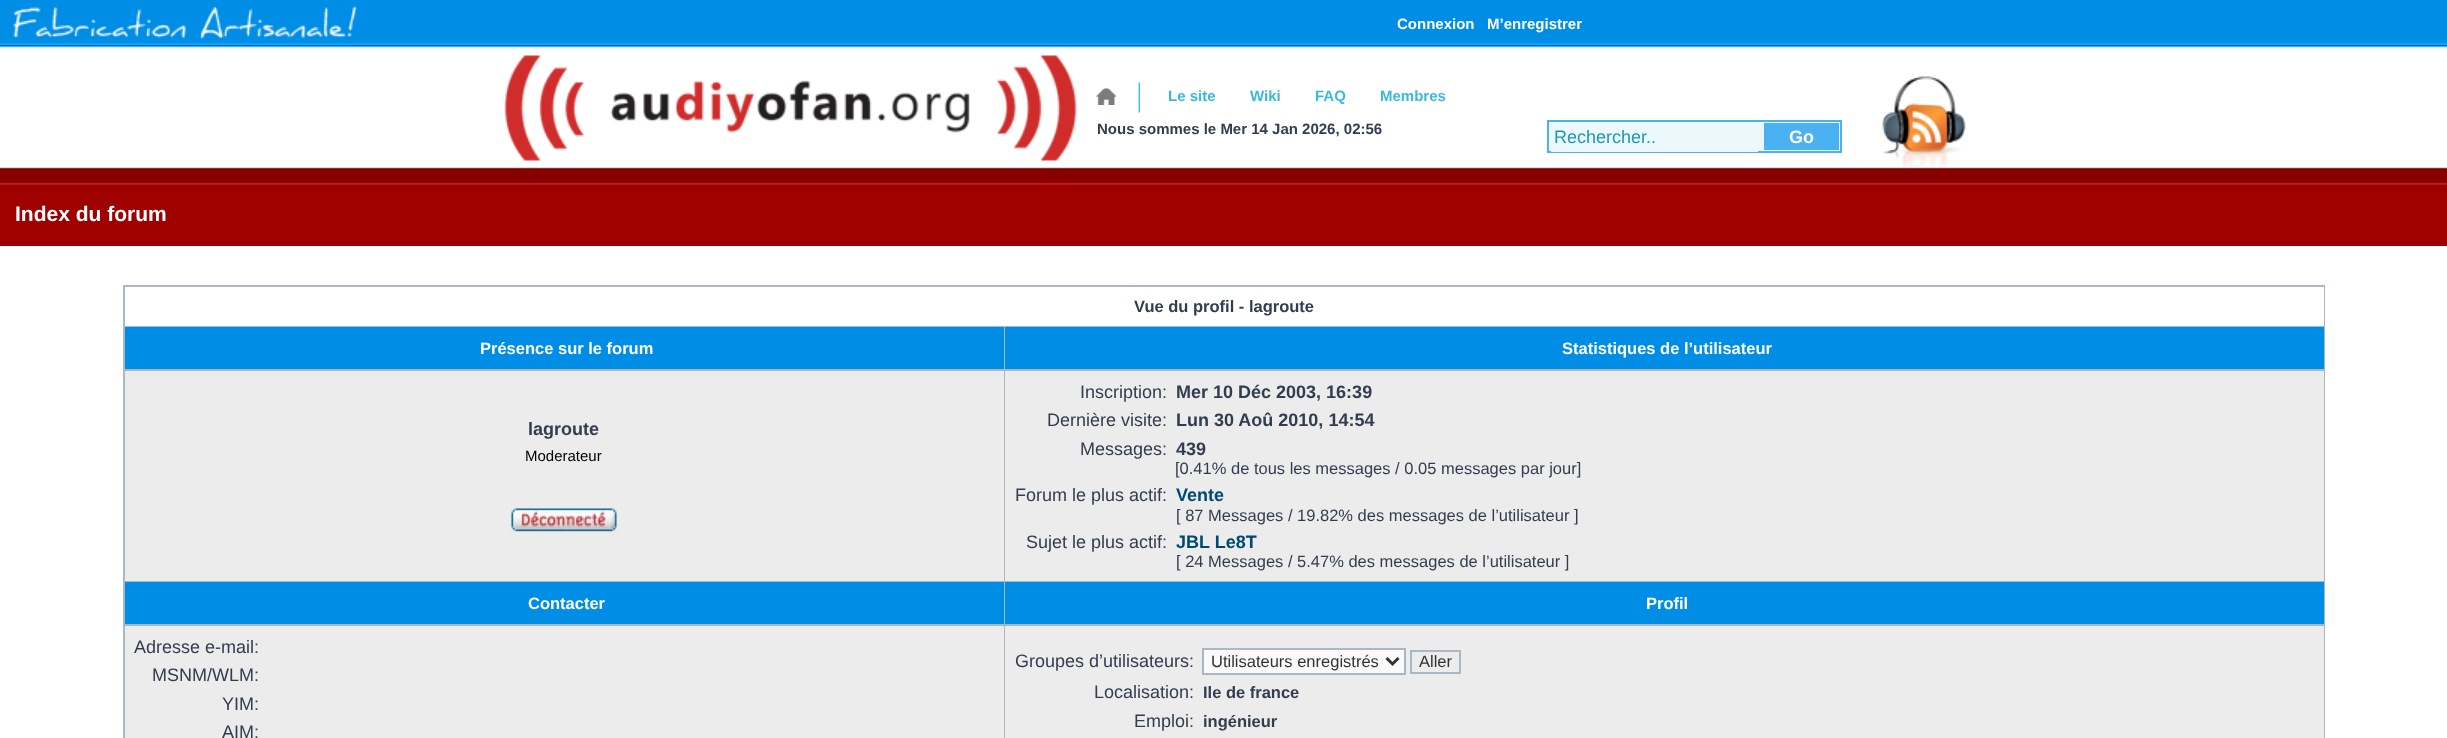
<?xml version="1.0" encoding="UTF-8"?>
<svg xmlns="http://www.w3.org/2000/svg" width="2447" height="738">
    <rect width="100%" height="100%" fill="#FFFFFF"/>
    <image x="0" y="0" width="2447" height="246" href="img_01.png"/>
    <image x="13" y="5" width="345" height="34" href="img_02.png"/>
    <text x="1397" y="29" font-family="Liberation Sans" font-size="15" font-weight="700" fill="#FFFFFF">Connexion</text>
    <text x="1487" y="29" font-family="Liberation Sans" font-size="15" font-weight="700" fill="#FFFFFF">M’enregistrer</text>
    <image x="504" y="55" width="573" height="106" href="img_03.png"/>
    <image x="1096" y="88" width="20" height="17" href="img_04.png"/>
    <image x="1138" y="82" width="2" height="31" href="img_05.png"/>
    <text x="1168" y="101" font-family="Liberation Sans" font-size="15" font-weight="700" fill="#3AB9DE">Le site</text>
    <text x="1250" y="101" font-family="Liberation Sans" font-size="15" font-weight="700" fill="#3AB9DE">Wiki</text>
    <text x="1315" y="101" font-family="Liberation Sans" font-size="15" font-weight="700" fill="#3AB9DE">FAQ</text>
    <text x="1380" y="101" font-family="Liberation Sans" font-size="15" font-weight="700" fill="#3AB9DE">Membres</text>
    <image x="1882" y="76" width="84" height="91" href="img_06.png"/>
    <text x="1097" y="134" font-family="Liberation Sans" font-size="15" font-weight="700" fill="#323D4F">Nous sommes le Mer 14 Jan 2026, 02:56</text>
    <rect x="1548" y="121" width="293" height="31" fill="#EBF8FC" stroke="#4AB2F3" stroke-width="2"/>
    <rect x="1551" y="151" width="207" height="1" fill="#EBF8FC"/>
    <text x="1554" y="143" font-family="Liberation Sans" font-size="18" fill="#1F96B8">Rechercher..</text>
    <rect x="1764" y="123" width="75" height="27" fill="#4AB2F3"/>
    <text x="1789" y="143" font-family="Liberation Sans" font-size="18" font-weight="700" fill="#FFFFFF">Go</text>
    <text x="15" y="221" font-family="Liberation Sans" font-size="21" font-weight="700" fill="#FFFFFF">Index du forum</text>
    <rect x="123" y="285" width="2202" height="453" fill="#A9B8C2"/>
    <rect x="125" y="287" width="2199" height="39" fill="#FFFFFF"/>
    <text x="1134" y="312" font-family="Liberation Sans" font-size="16.5" font-weight="700" fill="#323D4F">Vue du profil - lagroute</text>
    <rect x="125" y="327" width="879" height="42" fill="#008DE5"/>
    <text x="480" y="354" font-family="Liberation Sans" font-size="16.5" font-weight="700" fill="#FFFFFF">Présence sur le forum</text>
    <rect x="1005" y="327" width="1319" height="42" fill="#008DE5"/>
    <text x="1562" y="354" font-family="Liberation Sans" font-size="16.5" font-weight="700" fill="#FFFFFF">Statistiques de l’utilisateur</text>
    <rect x="125" y="371" width="879" height="210" fill="#ECECEC"/>
    <text x="528" y="435" font-family="Liberation Sans" font-size="18" font-weight="700" fill="#323D4F">lagroute</text>
    <text x="525" y="461" font-family="Liberation Sans" font-size="15" fill="#000000">Moderateur</text>
    <image x="511" y="508" width="106" height="24" href="img_07.png"/>
    <rect x="1005" y="371" width="1319" height="210" fill="#ECECEC"/>
    <text x="1080" y="398" font-family="Liberation Sans" font-size="18" fill="#323D4F">Inscription:</text>
    <text x="1176" y="398" font-family="Liberation Sans" font-size="18" font-weight="700" fill="#323D4F">Mer 10 Déc 2003, 16:39</text>
    <text x="1047" y="426" font-family="Liberation Sans" font-size="18" fill="#323D4F">Dernière visite:</text>
    <text x="1176" y="426" font-family="Liberation Sans" font-size="18" font-weight="700" fill="#323D4F">Lun 30 Aoû 2010, 14:54</text>
    <text x="1080" y="455" font-family="Liberation Sans" font-size="18" fill="#323D4F">Messages:</text>
    <text x="1176" y="455" font-family="Liberation Sans" font-size="18" font-weight="700" fill="#323D4F">439</text>
    <text x="1175" y="474" font-family="Liberation Sans" font-size="16.5" fill="#323D4F">[0.41% de tous les messages / 0.05 messages par jour]</text>
    <text x="1015" y="501" font-family="Liberation Sans" font-size="18" fill="#323D4F">Forum le plus actif:</text>
    <text x="1176" y="501" font-family="Liberation Sans" font-size="18" font-weight="700" fill="#004A6F">Vente</text>
    <text x="1176" y="521" font-family="Liberation Sans" font-size="16.5" fill="#323D4F">[ 87 Messages / 19.82% des messages de l’utilisateur ]</text>
    <text x="1026" y="548" font-family="Liberation Sans" font-size="18" fill="#323D4F">Sujet le plus actif:</text>
    <text x="1176" y="548" font-family="Liberation Sans" font-size="18" font-weight="700" fill="#004A6F">JBL Le8T</text>
    <text x="1176" y="567" font-family="Liberation Sans" font-size="16.5" fill="#323D4F">[ 24 Messages / 5.47% des messages de l’utilisateur ]</text>
    <rect x="125" y="582" width="879" height="42" fill="#008DE5"/>
    <text x="528" y="609" font-family="Liberation Sans" font-size="16.5" font-weight="700" fill="#FFFFFF">Contacter</text>
    <rect x="1005" y="582" width="1319" height="42" fill="#008DE5"/>
    <text x="1646" y="609" font-family="Liberation Sans" font-size="16.5" font-weight="700" fill="#FFFFFF">Profil</text>
    <rect x="125" y="626" width="879" height="112" fill="#ECECEC"/>
    <text x="134" y="653" font-family="Liberation Sans" font-size="18" fill="#323D4F">Adresse e-mail:</text>
    <text x="152" y="681" font-family="Liberation Sans" font-size="18" fill="#323D4F">MSNM/WLM:</text>
    <text font-family="Liberation Sans" font-size="18" fill="#323D4F">
        <tspan x="222" y="710">YIM:</tspan>
        <tspan x="222" y="738">AIM:</tspan>
    </text>
    <rect x="1005" y="626" width="1319" height="112" fill="#ECECEC"/>
    <text x="1015" y="667" font-family="Liberation Sans" font-size="18" fill="#323D4F">Groupes d’utilisateurs:</text>
    <rect x="1203" y="649" width="202" height="25" fill="#FAFAFA" stroke="#A9B8C2" stroke-width="2"/>
    <path d="M 1386.5 658 L 1392.5 664 L 1398.5 658" fill="none" stroke="#333333" stroke-width="3"/>
    <text x="1211" y="667" font-family="Liberation Sans" font-size="16.5" fill="#333333">Utilisateurs enregistrés</text>
    <rect x="1411" y="651" width="49" height="22" fill="none" stroke="#A9B8C2" stroke-width="2"/>
    <text x="1419" y="667" font-family="Liberation Sans" font-size="16.5" fill="#333333">Aller</text>
    <text x="1094" y="698" font-family="Liberation Sans" font-size="18" fill="#323D4F">Localisation:</text>
    <text x="1203" y="698" font-family="Liberation Sans" font-size="16.5" font-weight="700" fill="#323D4F">Ile de france</text>
    <text x="1134" y="727" font-family="Liberation Sans" font-size="18" fill="#323D4F">Emploi:</text>
    <text x="1203" y="727" font-family="Liberation Sans" font-size="16.5" font-weight="700" fill="#323D4F">ingénieur</text>
</svg>
